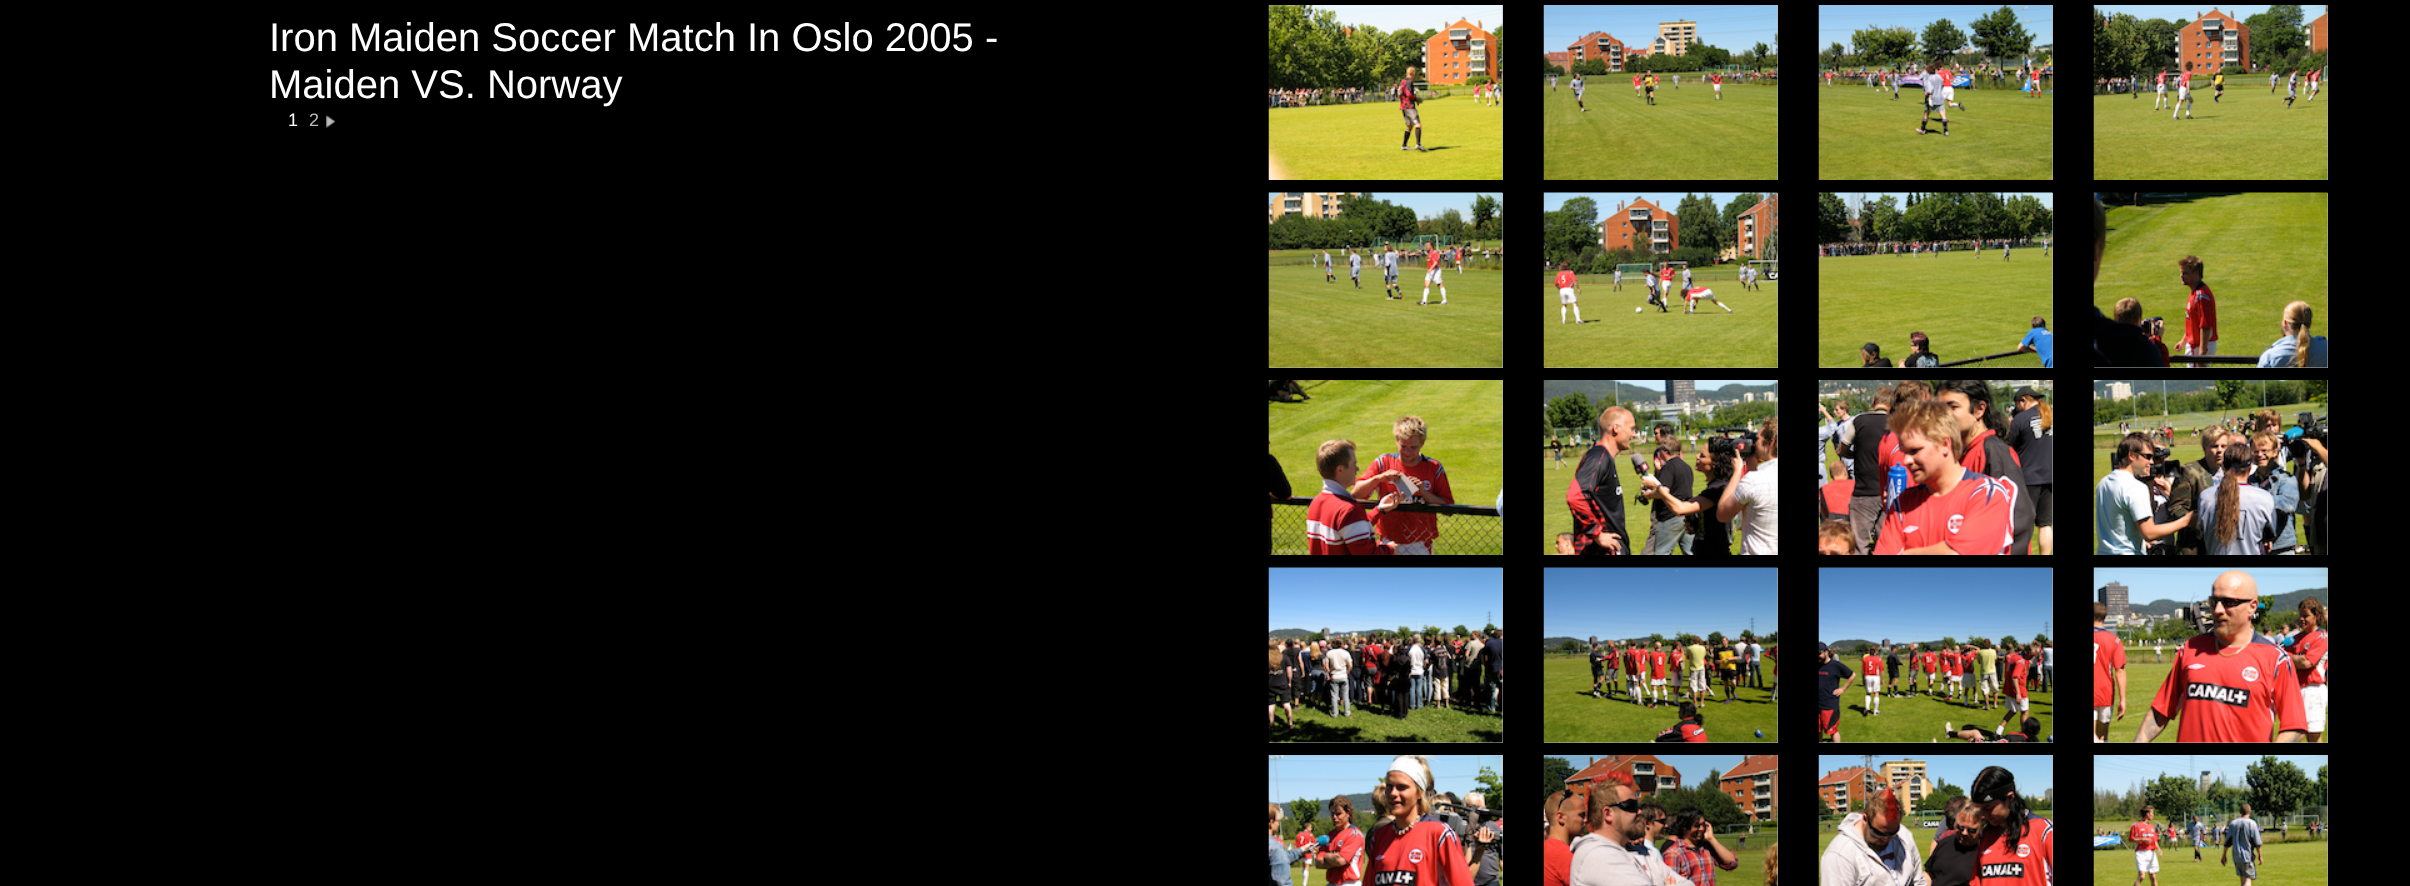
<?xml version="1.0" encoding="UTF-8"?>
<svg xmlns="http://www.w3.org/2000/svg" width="2410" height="886">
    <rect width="100%" height="100%" fill="#000000"/>
    <text font-family="Liberation Sans" font-size="40" fill="#FFFFFF">
        <tspan x="269" y="51">Iron Maiden Soccer Match In Oslo 2005 -</tspan>
        <tspan x="269" y="98">Maiden VS. Norway</tspan>
    </text>
    <text x="288" y="126" font-family="Liberation Sans" font-size="18" fill="#FFFFFF">1</text>
    <text x="309" y="126" font-family="Liberation Sans" font-size="18" fill="#BBBBBB">2</text>
    <image x="326" y="115" width="9" height="13" href="img_01.png"/>
    <rect x="1502" y="5" width="1" height="175" fill="#BBBBBB"/>
    <image x="1268" y="5" width="235" height="175" href="img_02.png"/>
    <rect x="1777" y="5" width="1" height="175" fill="#BBBBBB"/>
    <image x="1543" y="5" width="235" height="175" href="img_03.png"/>
    <rect x="2052" y="5" width="1" height="175" fill="#BBBBBB"/>
    <image x="1818" y="5" width="235" height="175" href="img_04.png"/>
    <rect x="2327" y="5" width="1" height="175" fill="#BBBBBB"/>
    <image x="2093" y="5" width="235" height="175" href="img_05.png"/>
    <rect x="1269" y="193" width="234" height="175" fill="#BBBBBB"/>
    <image x="1268" y="192" width="235" height="176" href="img_06.png"/>
    <rect x="1544" y="193" width="234" height="175" fill="#BBBBBB"/>
    <image x="1543" y="192" width="235" height="176" href="img_07.png"/>
    <rect x="1819" y="193" width="234" height="175" fill="#BBBBBB"/>
    <image x="1818" y="192" width="235" height="176" href="img_08.png"/>
    <rect x="2094" y="193" width="234" height="175" fill="#BBBBBB"/>
    <image x="2093" y="192" width="235" height="176" href="img_09.png"/>
    <rect x="1502" y="380" width="1" height="175" fill="#BBBBBB"/>
    <image x="1268" y="380" width="235" height="175" href="img_10.png"/>
    <rect x="1777" y="380" width="1" height="175" fill="#BBBBBB"/>
    <image x="1543" y="380" width="235" height="175" href="img_11.png"/>
    <rect x="2052" y="380" width="1" height="175" fill="#BBBBBB"/>
    <image x="1818" y="380" width="235" height="175" href="img_12.png"/>
    <rect x="2327" y="380" width="1" height="175" fill="#BBBBBB"/>
    <image x="2093" y="380" width="235" height="175" href="img_13.png"/>
    <rect x="1269" y="568" width="234" height="175" fill="#BBBBBB"/>
    <image x="1268" y="567" width="235" height="176" href="img_14.png"/>
    <rect x="1544" y="568" width="234" height="175" fill="#BBBBBB"/>
    <image x="1543" y="567" width="235" height="176" href="img_15.png"/>
    <rect x="1819" y="568" width="234" height="175" fill="#BBBBBB"/>
    <image x="1818" y="567" width="235" height="176" href="img_16.png"/>
    <rect x="2094" y="568" width="234" height="175" fill="#BBBBBB"/>
    <image x="2093" y="567" width="235" height="176" href="img_17.png"/>
    <rect x="1502" y="755" width="1" height="131" fill="#BBBBBB"/>
    <image x="1268" y="755" width="235" height="131" href="img_18.png"/>
    <rect x="1777" y="755" width="1" height="131" fill="#BBBBBB"/>
    <image x="1543" y="755" width="235" height="131" href="img_19.png"/>
    <rect x="2052" y="755" width="1" height="131" fill="#BBBBBB"/>
    <image x="1818" y="755" width="235" height="131" href="img_20.png"/>
    <rect x="2327" y="755" width="1" height="131" fill="#BBBBBB"/>
    <image x="2093" y="755" width="235" height="131" href="img_21.png"/>
</svg>
